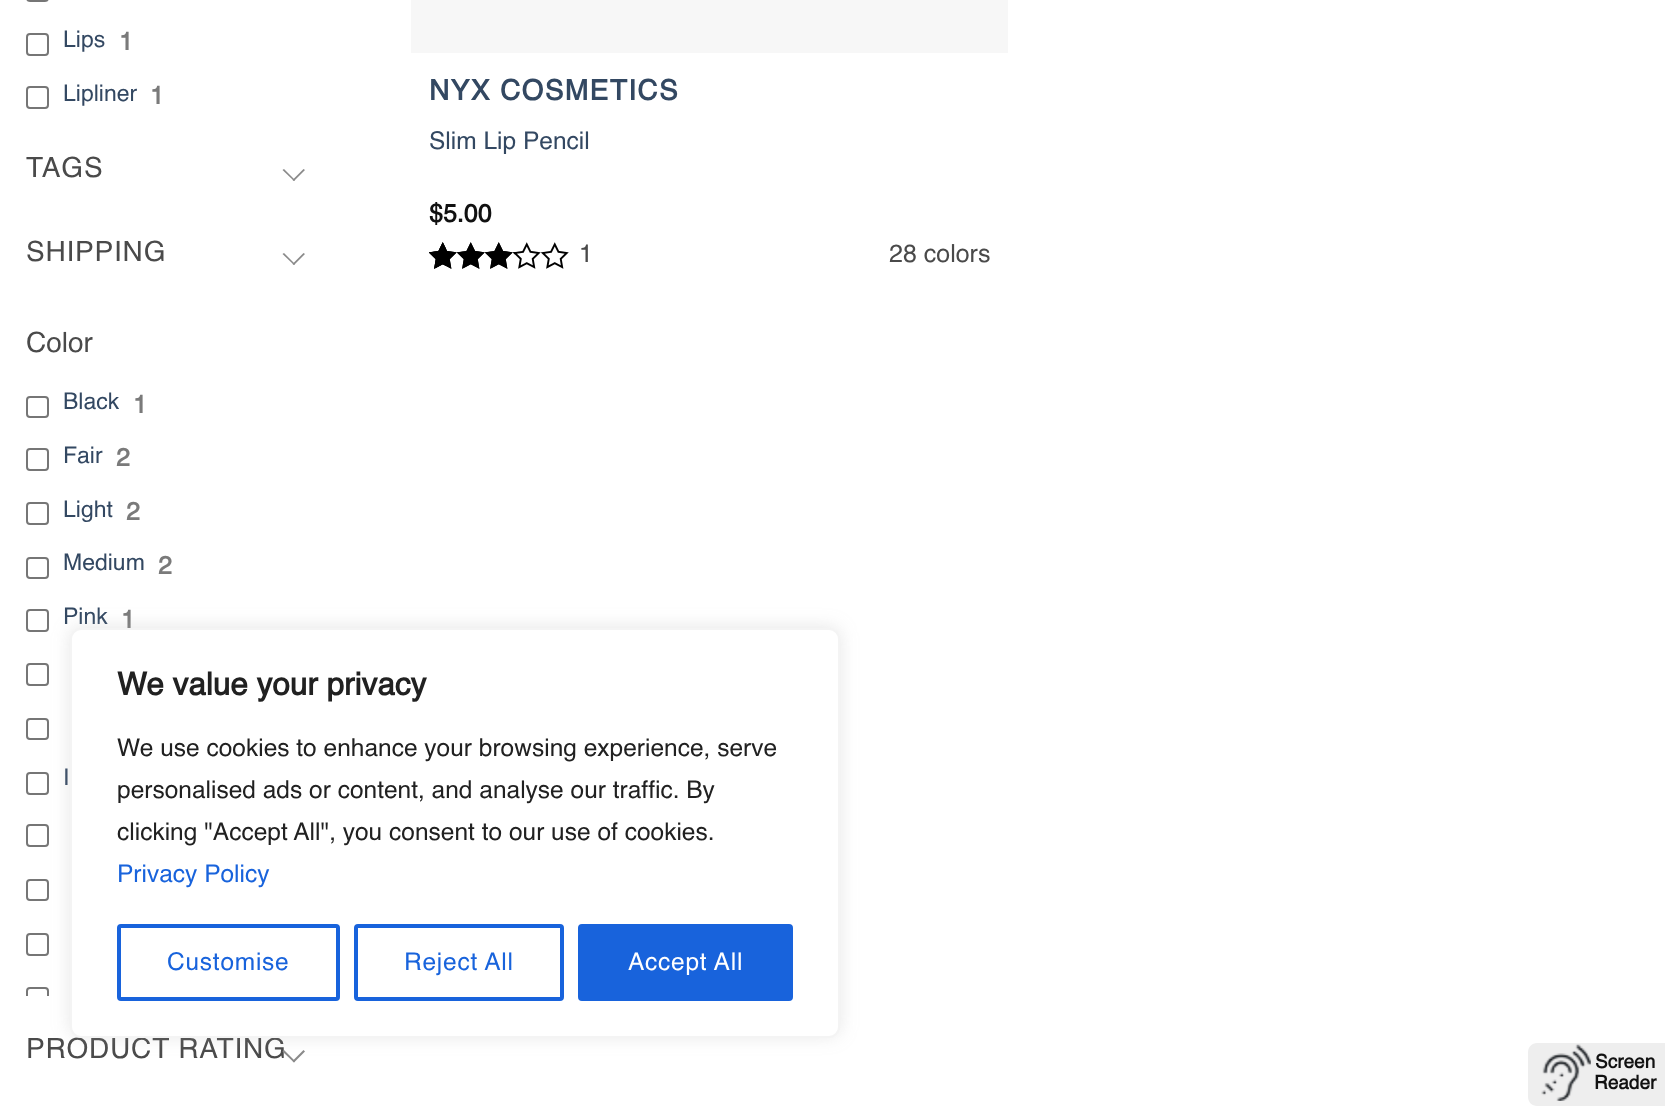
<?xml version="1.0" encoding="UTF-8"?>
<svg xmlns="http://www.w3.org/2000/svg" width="1665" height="1107">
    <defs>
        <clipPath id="clip1"><rect x="26" y="383" width="280" height="613"/></clipPath>
        <filter id="blur1" x="-50%" y="-200%" width="200%" height="500%"><feGaussianBlur stdDeviation="9"/></filter>
    </defs>
    <rect width="100%" height="100%" fill="#FFFFFF"/>
    <rect x="27" y="-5" width="21" height="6" rx="3" fill="none" stroke="#767676" stroke-width="2"/>
    <rect x="27" y="34" width="21" height="21" rx="3" fill="none" stroke="#767676" stroke-width="2"/>
    <text x="63" y="47" font-family="Helvetica" font-size="23" fill="#334862">Lips</text>
    <text x="119" y="50" font-family="Helvetica" font-size="25" font-weight="700" fill="#7A7A7A">1</text>
    <rect x="27" y="87" width="21" height="21" rx="3" fill="none" stroke="#767676" stroke-width="2"/>
    <text x="63" y="101" font-family="Helvetica" font-size="23" fill="#334862">Lipliner</text>
    <text x="150" y="104" font-family="Helvetica" font-size="25" font-weight="700" fill="#7A7A7A">1</text>
    <text x="26" y="177" font-family="Helvetica" font-size="28" letter-spacing="0.8" fill="#4A4A4A">TAGS</text>
    <path d="M 294 181 L 282.5 170 L 284 169 L 295 180 Z" fill="#8A8A8A"/>
    <path d="M 294 181 L 292.5 180 L 303.5 169 L 305 170 Z" fill="#8A8A8A"/>
    <text x="26" y="261" font-family="Helvetica" font-size="28" letter-spacing="0.8" fill="#4A4A4A">SHIPPING</text>
    <path d="M 294 265 L 282.5 254 L 284 253 L 295 264 Z" fill="#8A8A8A"/>
    <path d="M 294 265 L 292.5 264 L 303.5 253 L 305 254 Z" fill="#8A8A8A"/>
    <text x="26" y="352" font-family="Helvetica" font-size="28" fill="#4A4A4A">Color</text>
    <rect x="27" y="397" width="21" height="20" rx="3" fill="none" stroke="#767676" stroke-width="2"/>
    <text x="63" y="409" font-family="Helvetica" font-size="23" fill="#334862">Black</text>
    <text x="133" y="413" font-family="Helvetica" font-size="25" font-weight="700" fill="#7A7A7A">1</text>
    <rect x="27" y="449" width="21" height="21" rx="3" fill="none" stroke="#767676" stroke-width="2"/>
    <text x="63" y="463" font-family="Helvetica" font-size="23" fill="#334862">Fair</text>
    <text x="116" y="466" font-family="Helvetica" font-size="25" font-weight="700" fill="#7A7A7A">2</text>
    <rect x="27" y="503" width="21" height="21" rx="3" fill="none" stroke="#767676" stroke-width="2"/>
    <text x="63" y="517" font-family="Helvetica" font-size="23" fill="#334862">Light</text>
    <text x="126" y="520" font-family="Helvetica" font-size="25" font-weight="700" fill="#7A7A7A">2</text>
    <rect x="27" y="558" width="21" height="20" rx="3" fill="none" stroke="#767676" stroke-width="2"/>
    <text x="63" y="570" font-family="Helvetica" font-size="23" fill="#334862">Medium</text>
    <text x="158" y="574" font-family="Helvetica" font-size="25" font-weight="700" fill="#7A7A7A">2</text>
    <rect x="27" y="610" width="21" height="21" rx="3" fill="none" stroke="#767676" stroke-width="2"/>
    <text x="63" y="624" font-family="Helvetica" font-size="23" fill="#334862">Pink</text>
    <text x="121" y="628" font-family="Helvetica" font-size="25" font-weight="700" fill="#7A7A7A">1</text>
    <rect x="27" y="664" width="21" height="21" rx="3" fill="none" stroke="#767676" stroke-width="2"/>
    <rect x="27" y="719" width="21" height="20" rx="3" fill="none" stroke="#767676" stroke-width="2"/>
    <rect x="27" y="773" width="21" height="21" rx="3" fill="none" stroke="#767676" stroke-width="2"/>
    <text x="63" y="785" font-family="Helvetica" font-size="23" fill="#334862">I</text>
    <rect x="27" y="825" width="21" height="21" rx="3" fill="none" stroke="#767676" stroke-width="2"/>
    <rect x="27" y="880" width="21" height="20" rx="3" fill="none" stroke="#767676" stroke-width="2"/>
    <rect x="27" y="934" width="21" height="21" rx="3" fill="none" stroke="#767676" stroke-width="2"/>
    <g clip-path="url(#clip1)">
        <rect x="27" y="988" width="21" height="21" rx="3" fill="none" stroke="#767676" stroke-width="2"/>
    </g>
    <text x="26" y="1058" font-family="Helvetica" font-size="28" letter-spacing="0.8" fill="#4A4A4A">PRODUCT RATING</text>
    <path d="M 294 1062.5 L 282.5 1051.5 L 284 1050 L 295 1061 Z" fill="#8A8A8A"/>
    <path d="M 294 1062.5 L 292.5 1061 L 303.5 1050 L 305 1051.5 Z" fill="#8A8A8A"/>
    <rect x="411" y="0" width="597" height="53" fill="#F7F7F7"/>
    <text x="429" y="100" font-family="Helvetica" font-size="28" font-weight="700" letter-spacing="1.4" fill="#334862">NYX COSMETICS</text>
    <text x="429" y="149" font-family="Helvetica" font-size="24.5" fill="#334862">Slim Lip Pencil</text>
    <text x="429" y="222" font-family="Helvetica" font-size="25" font-weight="700" fill="#111111">$5.00</text>
    <image x="429" y="242" width="140" height="27" href="img_01.png"/>
    <image x="429" y="242" width="86" height="27" href="img_02.png"/>
    <image x="429" y="242" width="17" height="27" href="img_03.png"/>
    <text x="579" y="262" font-family="Helvetica" font-size="25" fill="#4A4A4A">1</text>
    <text x="889" y="262" font-family="Helvetica" font-size="25" fill="#4A4A4A">28 colors</text>
    <rect x="70" y="627" width="770" height="409" rx="11" fill="#ACABAB" fill-opacity="0.3" filter="url(#blur1)"/>
    <rect x="71" y="629" width="768" height="408" rx="10" fill="#FFFFFF" stroke="#F4F4F4" stroke-width="2"/>
    <text x="117" y="695" font-family="Helvetica" font-size="31.5" font-weight="700" fill="#212121">We value your privacy</text>
    <text font-family="Helvetica" font-size="24.5" fill="#212121">
        <tspan x="117" y="756">We use cookies to enhance your browsing experience, serve</tspan>
        <tspan x="117" y="798">personalised ads or content, and analyse our traffic. By</tspan>
        <tspan x="117" y="840">clicking "Accept All", you consent to our use of cookies.</tspan>
    </text>
    <text x="117" y="882" font-family="Helvetica" font-size="24.5" fill="#1863DC">Privacy Policy</text>
    <rect x="119" y="926" width="219" height="73" rx="2" fill="none" stroke="#1863DC" stroke-width="4"/>
    <text x="167" y="970" font-family="Helvetica" font-size="24.5" letter-spacing="0.75" fill="#1863DC">Customise</text>
    <rect x="356" y="926" width="206" height="73" rx="2" fill="none" stroke="#1863DC" stroke-width="4"/>
    <text x="404" y="970" font-family="Helvetica" font-size="24.5" letter-spacing="0.75" fill="#1863DC">Reject All</text>
    <rect x="580" y="926" width="211" height="73" rx="2" fill="#1863DC" stroke="#1863DC" stroke-width="4"/>
    <text x="628" y="970" font-family="Helvetica" font-size="24.5" letter-spacing="0.75" fill="#FFFFFF">Accept All</text>
    <path d="M 1537 1043 H 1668 V 1106 H 1537 C 1532 1106 1528 1102 1528 1097 V 1052 C 1528 1047 1532 1043 1537 1043 Z" fill="#EEEEEE"/>
    <image x="1541" y="1044" width="50" height="57" href="img_04.png"/>
    <text x="1595" y="1068" font-family="Helvetica" font-size="19" font-weight="700" fill="#111111">Screen</text>
    <text x="1594" y="1089" font-family="Helvetica" font-size="19" font-weight="700" fill="#111111">Reader</text>
</svg>
